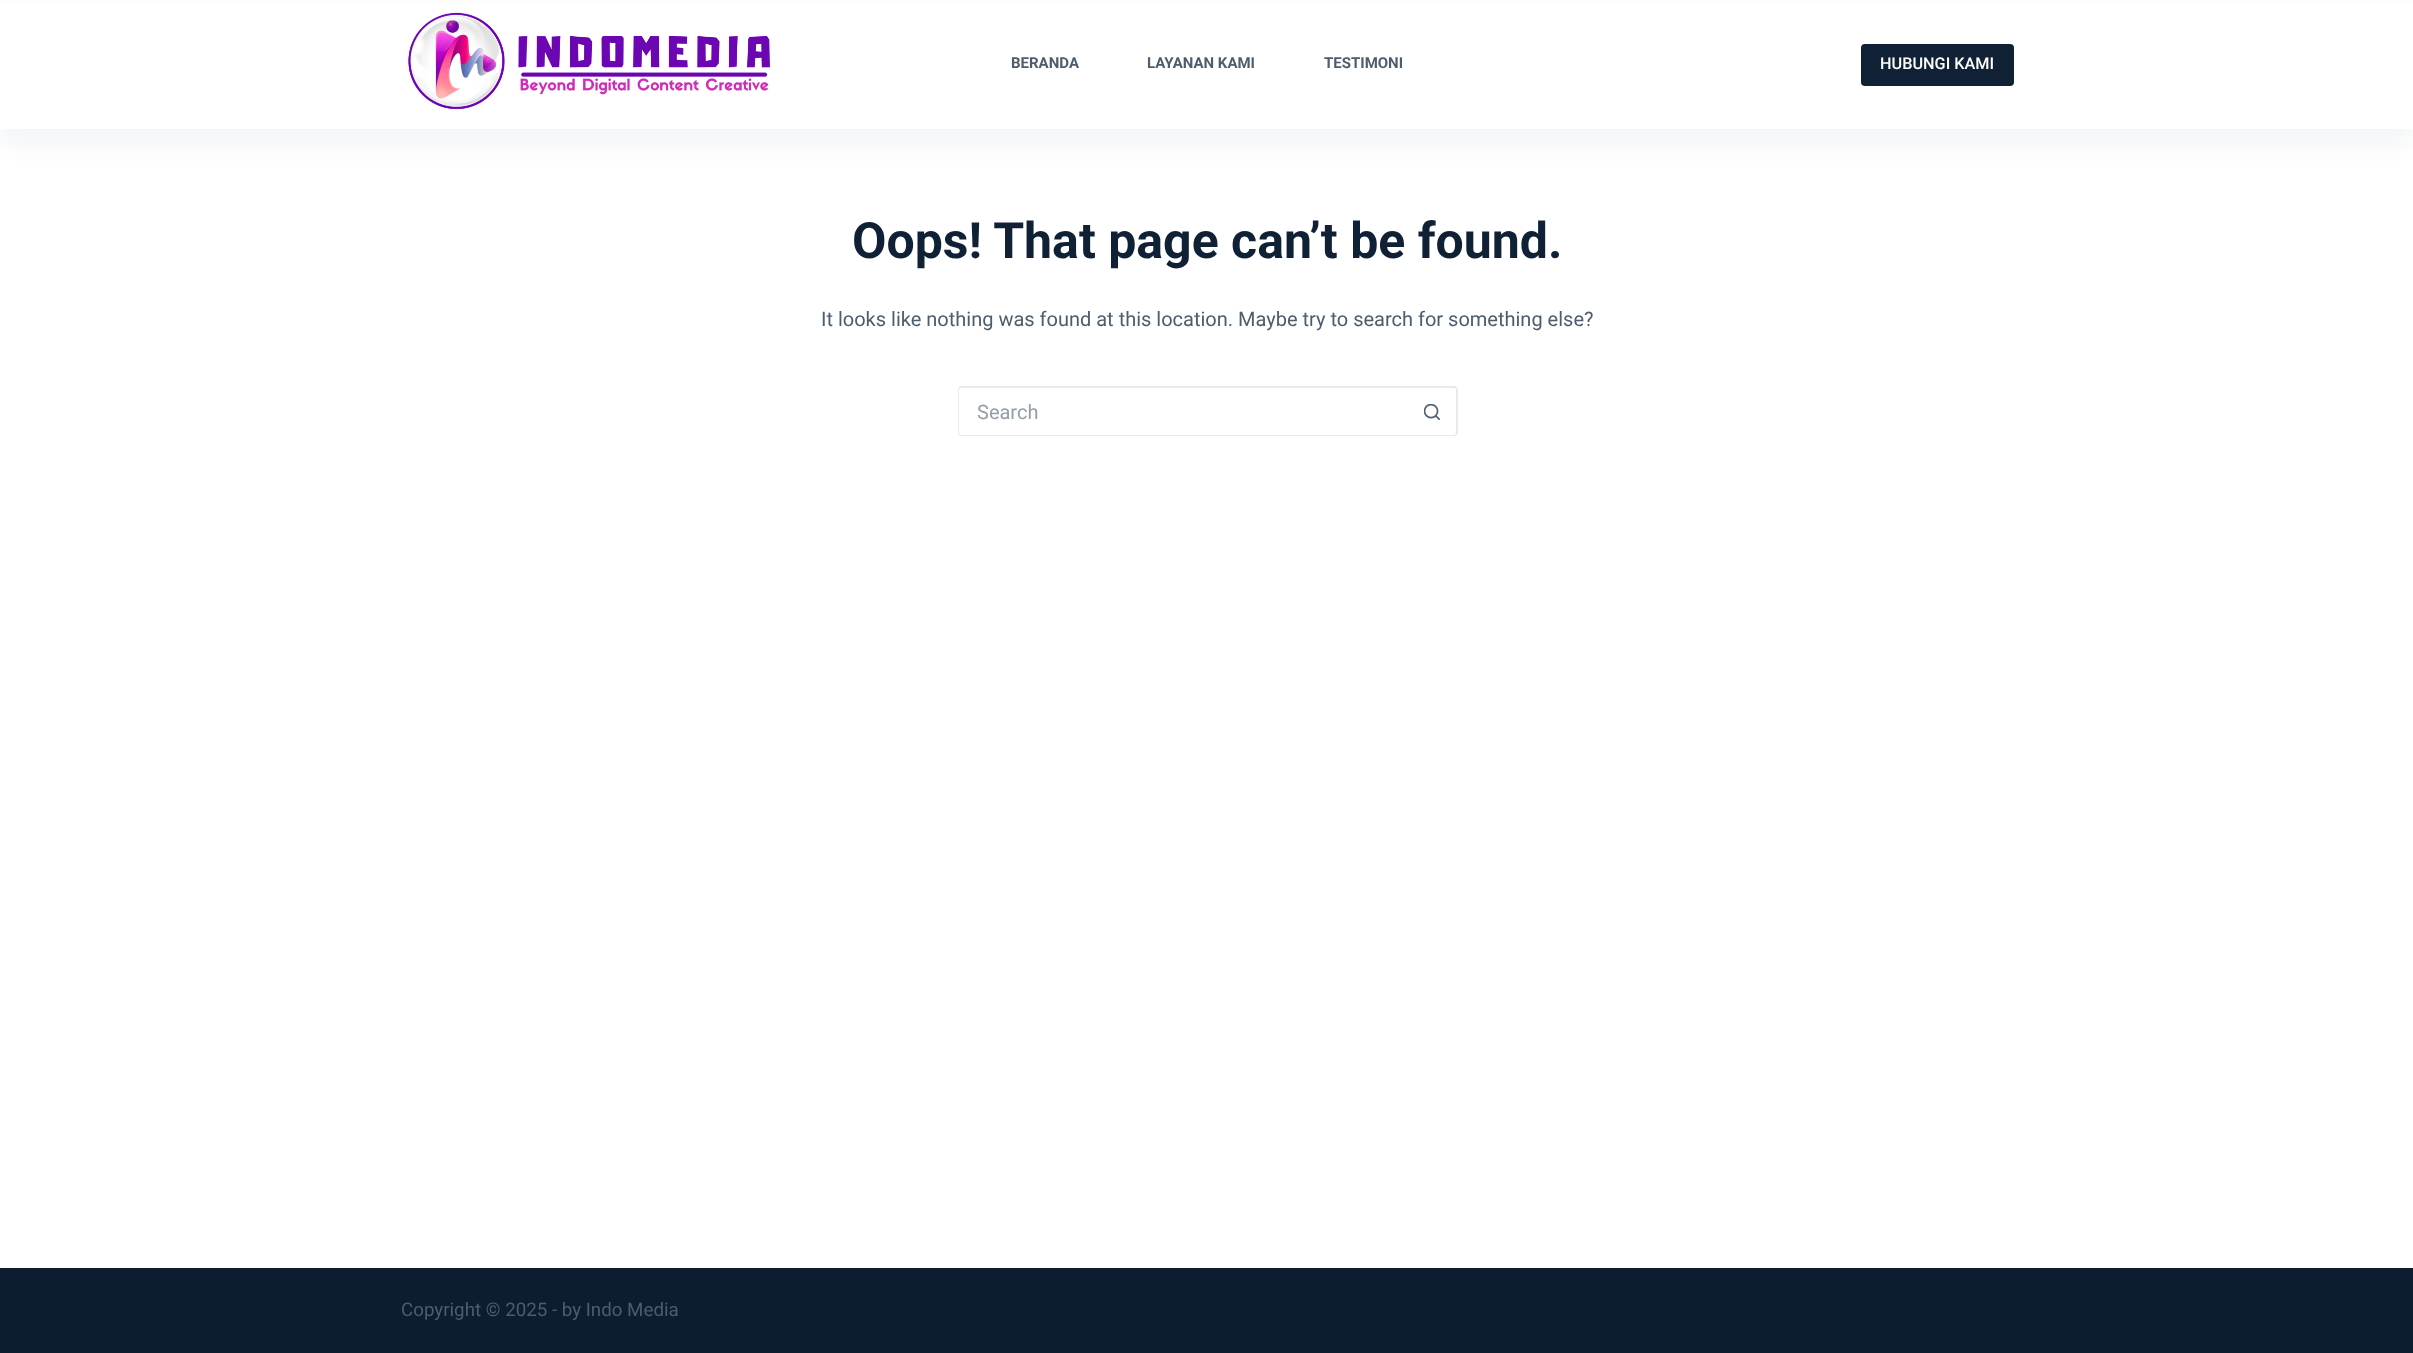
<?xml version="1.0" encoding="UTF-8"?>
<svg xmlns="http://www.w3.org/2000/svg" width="2413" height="1353">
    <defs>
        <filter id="blur1" x="-50%" y="-200%" width="200%" height="500%"><feGaussianBlur stdDeviation="12.5"/></filter>
    </defs>
    <rect width="100%" height="100%" fill="#FFFFFF"/>
    <rect x="0" y="13" width="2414" height="128" fill="#2B3D50" fill-opacity="0.06" filter="url(#blur1)"/>
    <rect x="0" y="3" width="2413" height="126" fill="#FFFFFF"/>
    <image x="408" y="12" width="362" height="98" href="img_01.png"/>
    <text x="1011" y="68" font-family="Roboto" font-size="15" font-weight="700" fill="#4D5D6D">BERANDA</text>
    <text x="1147" y="68" font-family="Roboto" font-size="15" font-weight="700" fill="#4D5D6D">LAYANAN KAMI</text>
    <text x="1324" y="68" font-family="Roboto" font-size="15" font-weight="700" fill="#4D5D6D">TESTIMONI</text>
    <rect x="1861" y="44" width="153" height="42" rx="4" fill="#102136"/>
    <text x="1880" y="69" font-family="Roboto" font-size="16.25" font-weight="500" fill="#FFFFFF">HUBUNGI KAMI</text>
    <text x="852" y="258" font-family="Roboto" font-size="50" font-weight="700" fill="#102136">Oops! That page can’t be found.</text>
    <text x="821" y="326" font-family="Roboto" font-size="20" fill="#4D5D6D">It looks like nothing was found at this location. Maybe try to search for something else?</text>
    <path d="M 961 386 H 1408 V 436 H 961 C 959 436 958 435 958 432 V 390 C 958 388 959 386 961 386 Z M 961 388 H 1408 V 435 H 961 C 960 435 959 434 959 432 V 390 C 959 389 960 388 961 388 Z" fill="#E7EBEE" fill-rule="evenodd"/>
    <text x="977" y="419" font-family="Roboto" font-size="20" fill="#949EA7">Search</text>
    <path d="M 1408 386 H 1454 C 1456 386 1458 388 1458 390 V 432 C 1458 435 1456 436 1454 436 H 1408 Z M 1408 388 H 1454 C 1455 388 1456 389 1456 390 V 432 C 1456 434 1455 435 1454 435 H 1408 Z" fill="#E7EBEE" fill-rule="evenodd"/>
    <image x="1424" y="404" width="16" height="16" href="img_02.png"/>
    <rect x="0" y="1268" width="2413" height="85" fill="#0D1C2F"/>
    <text x="401" y="1316" font-family="Roboto" font-size="18.75" fill="#4D5D6D">Copyright © 2025 - by Indo Media</text>
</svg>
